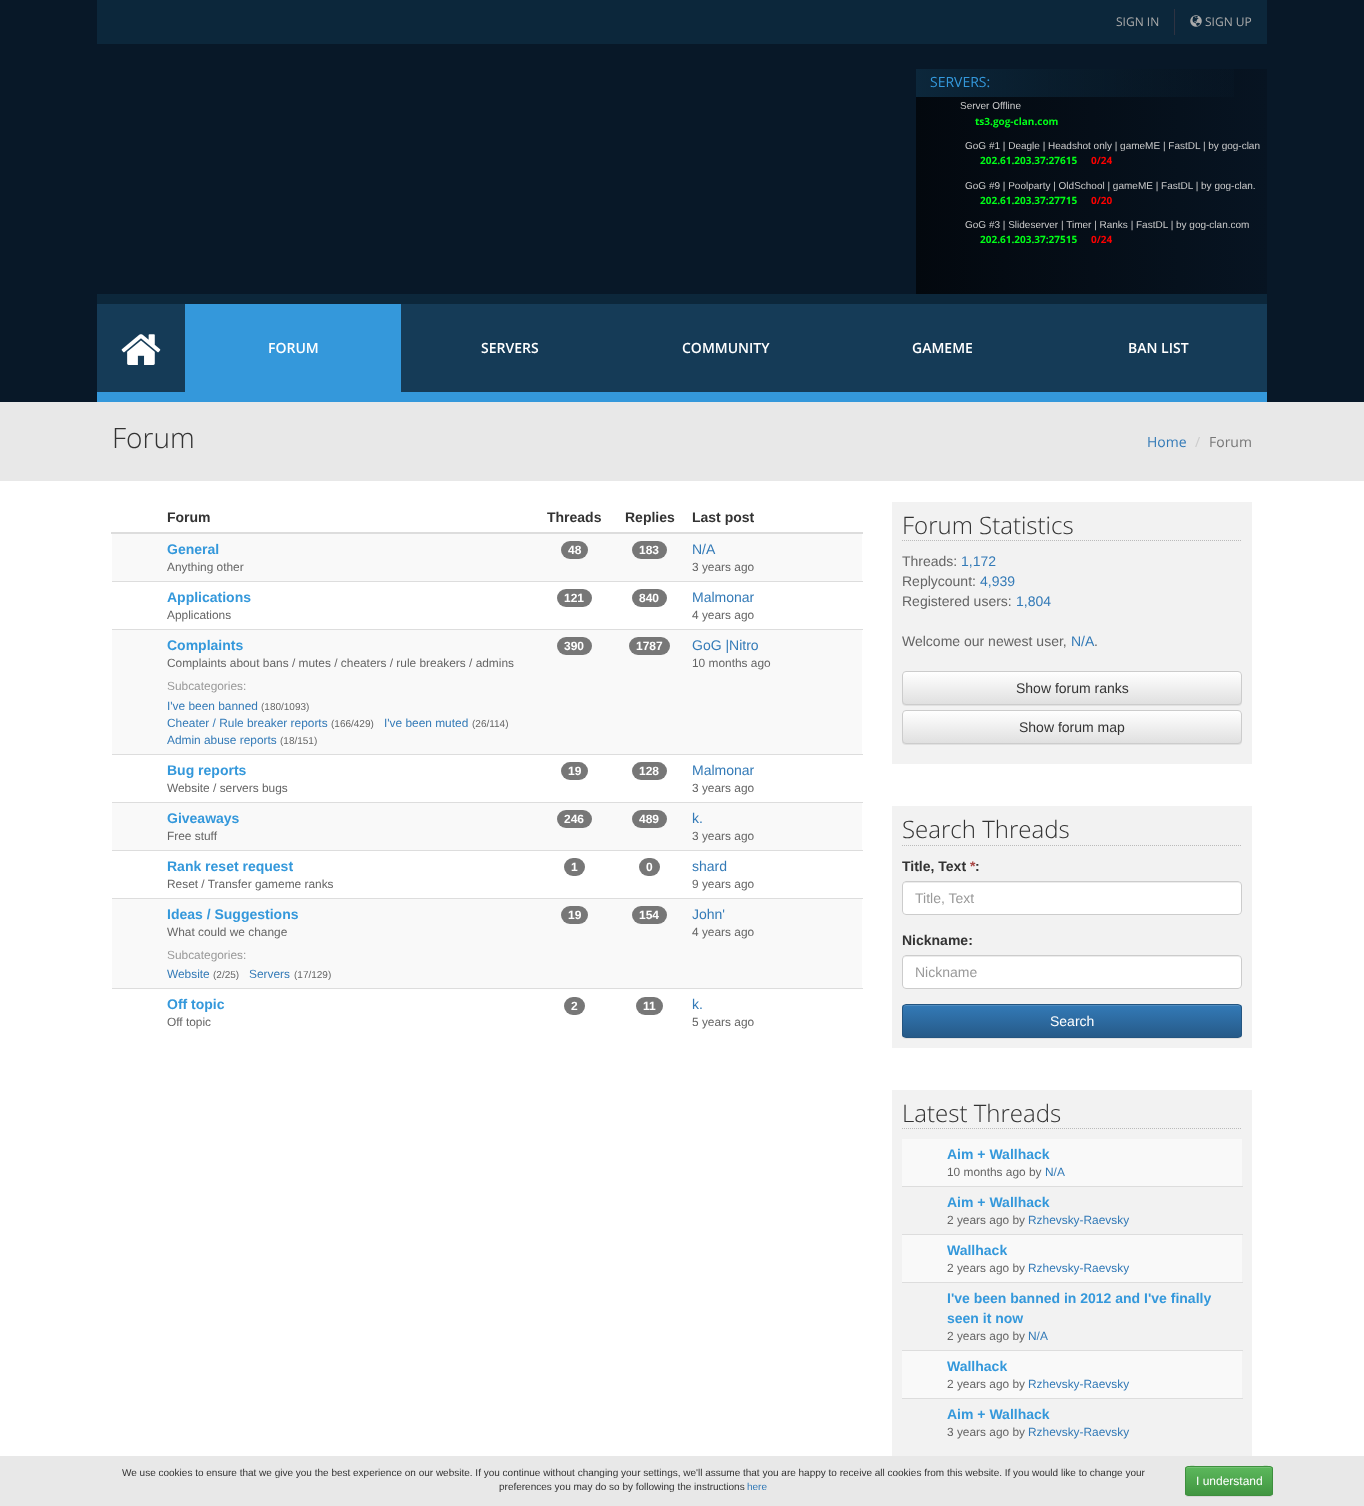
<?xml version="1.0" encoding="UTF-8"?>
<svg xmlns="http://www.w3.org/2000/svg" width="1364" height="1506">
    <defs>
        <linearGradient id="g1" gradientUnits="userSpaceOnUse" x1="916" y1="182" x2="1267" y2="182"><stop offset="0" stop-color="#03080E"/><stop offset="1" stop-color="#071422"/></linearGradient>
        <linearGradient id="g2" gradientUnits="userSpaceOnUse" x1="916" y1="83" x2="1267" y2="83"><stop offset="0" stop-color="#0C273B"/><stop offset="1" stop-color="#0C273B" stop-opacity="0"/></linearGradient>
        <filter id="blur1" x="-50%" y="-200%" width="200%" height="500%"><feGaussianBlur stdDeviation="0.5"/></filter>
        <clipPath id="clip1"><rect x="902" y="671" width="340" height="34" rx="4"/></clipPath>
        <linearGradient id="g3" gradientUnits="userSpaceOnUse" x1="1072" y1="672" x2="1072" y2="704"><stop offset="0" stop-color="#FFFFFF"/><stop offset="1" stop-color="#E0E0E0"/></linearGradient>
        <clipPath id="clip2"><rect x="902" y="710" width="340" height="34" rx="4"/></clipPath>
        <linearGradient id="g4" gradientUnits="userSpaceOnUse" x1="1072" y1="711" x2="1072" y2="743"><stop offset="0" stop-color="#FFFFFF"/><stop offset="1" stop-color="#E0E0E0"/></linearGradient>
        <clipPath id="clip3"><rect x="902" y="1004" width="340" height="34" rx="4"/></clipPath>
        <linearGradient id="g5" gradientUnits="userSpaceOnUse" x1="1072" y1="1005" x2="1072" y2="1037"><stop offset="0" stop-color="#337AB7"/><stop offset="1" stop-color="#265A88"/></linearGradient>
        <clipPath id="clip4"><rect x="1185" y="1466" width="88" height="30" rx="3"/></clipPath>
        <linearGradient id="g6" gradientUnits="userSpaceOnUse" x1="1229" y1="1467" x2="1229" y2="1495"><stop offset="0" stop-color="#5CB85C"/><stop offset="1" stop-color="#419641"/></linearGradient>
    </defs>
    <rect width="100%" height="100%" fill="#FFFFFF"/>
    <rect x="0" y="0" width="1364" height="402" fill="#081828"/>
    <rect x="97" y="0" width="1170" height="44" fill="#0C273B"/>
    <text x="1116" y="26" font-family="Open Sans" font-size="12" fill="#AAAAAA">SIGN IN</text>
    <rect x="1174" y="9" width="1" height="26" fill="#2F3342"/>
    <image x="1190" y="15" width="12" height="12" href="img_01.png"/>
    <text x="1205" y="26" font-family="Open Sans" font-size="12" fill="#AAAAAA">SIGN UP</text>
    <rect x="916" y="69" width="351" height="225" fill="url(#g1)"/>
    <rect x="916" y="69" width="318" height="28" fill="url(#g2)"/>
    <text x="930" y="87" font-family="Open Sans" font-size="14" fill="#3498DB">SERVERS:</text>
    <text x="960" y="109" font-family="Liberation Sans" font-size="10" fill="#CCCCCC">Server Offline</text>
    <text x="975" y="125" font-family="Open Sans" font-size="10" font-weight="700" fill="#00FF18">ts3.gog-clan.com</text>
    <text x="965" y="149" font-family="Liberation Sans" font-size="10" fill="#CCCCCC">GoG #1 | Deagle | Headshot only | gameME | FastDL | by gog-clan</text>
    <text x="980" y="164" font-family="Open Sans" font-size="10" font-weight="700" fill="#00FF18">202.61.203.37:27615</text>
    <text x="1091" y="164" font-family="Open Sans" font-size="10" font-weight="700" fill="#FF0000">0/24</text>
    <text x="965" y="189" font-family="Liberation Sans" font-size="10" fill="#CCCCCC">GoG #9 | Poolparty | OldSchool | gameME | FastDL | by gog-clan.</text>
    <text x="980" y="204" font-family="Open Sans" font-size="10" font-weight="700" fill="#00FF18">202.61.203.37:27715</text>
    <text x="1091" y="204" font-family="Open Sans" font-size="10" font-weight="700" fill="#FF0000">0/20</text>
    <text x="965" y="228" font-family="Liberation Sans" font-size="10" fill="#CCCCCC">GoG #3 | Slideserver | Timer | Ranks | FastDL | by gog-clan.com</text>
    <text x="980" y="243" font-family="Open Sans" font-size="10" font-weight="700" fill="#00FF18">202.61.203.37:27515</text>
    <text x="1091" y="243" font-family="Open Sans" font-size="10" font-weight="700" fill="#FF0000">0/24</text>
    <rect x="97" y="304" width="1170" height="88" fill="#153B57"/>
    <rect x="97" y="294" width="1170" height="10" fill="#0C273B"/>
    <rect x="97" y="392" width="1170" height="10" fill="#3498DB"/>
    <image x="121" y="334" width="40" height="31" href="img_02.png"/>
    <rect x="185" y="304" width="216" height="88" fill="#3498DB"/>
    <text x="268" y="353" font-family="Open Sans" font-size="14" font-weight="600" fill="#FFFFFF">FORUM</text>
    <text x="481" y="353" font-family="Open Sans" font-size="14" font-weight="600" fill="#FFFFFF">SERVERS</text>
    <text x="682" y="353" font-family="Open Sans" font-size="14" font-weight="600" fill="#FFFFFF">COMMUNITY</text>
    <text x="912" y="353" font-family="Open Sans" font-size="14" font-weight="600" fill="#FFFFFF">GAMEME</text>
    <text x="1128" y="353" font-family="Open Sans" font-size="14" font-weight="600" fill="#FFFFFF">BAN LIST</text>
    <rect x="0" y="402" width="1364" height="79" fill="#E8E8E8"/>
    <text x="112" y="448" font-family="Open Sans" font-size="28" font-weight="300" fill="#333333">Forum</text>
    <text x="1147" y="447" font-family="Open Sans" font-size="14" fill="#337AB7">Home</text>
    <text x="1195" y="447" font-family="Open Sans" font-size="14" fill="#CCCCCC">/</text>
    <text x="1209" y="447" font-family="Open Sans" font-size="14" fill="#777777">Forum</text>
    <text x="167" y="522" font-family="Liberation Sans" font-size="14" font-weight="700" fill="#333333">Forum</text>
    <text x="547" y="522" font-family="Liberation Sans" font-size="14" font-weight="700" fill="#333333">Threads</text>
    <text x="625" y="522" font-family="Liberation Sans" font-size="14" font-weight="700" fill="#333333">Replies</text>
    <rect x="111" y="532" width="752" height="2" fill="#DDDDDD"/>
    <text x="692" y="522" font-family="Liberation Sans" font-size="14" font-weight="700" fill="#333333">Last post</text>
    <rect x="112" y="534" width="750" height="47" fill="#F9F9F9"/>
    <text x="167" y="554" font-family="Liberation Sans" font-size="14" font-weight="700" fill="#3498DB">General</text>
    <text x="167" y="571" font-family="Liberation Sans" font-size="11.9" fill="#656565">Anything other</text>
    <rect x="561" y="541" width="27" height="18" rx="9" fill="#777777"/>
    <text x="568" y="554" font-family="Liberation Sans" font-size="12" font-weight="700" fill="#FFFFFF">48</text>
    <rect x="632" y="541" width="35" height="18" rx="9" fill="#777777"/>
    <text x="639" y="554" font-family="Liberation Sans" font-size="12" font-weight="700" fill="#FFFFFF">183</text>
    <text x="692" y="554" font-family="Liberation Sans" font-size="14" fill="#337AB7">N/A</text>
    <text x="692" y="571" font-family="Liberation Sans" font-size="11.9" fill="#656565">3 years ago</text>
    <text x="167" y="602" font-family="Liberation Sans" font-size="14" font-weight="700" fill="#3498DB">Applications</text>
    <text x="167" y="619" font-family="Liberation Sans" font-size="11.9" fill="#656565">Applications</text>
    <rect x="557" y="589" width="35" height="18" rx="9" fill="#777777"/>
    <text x="564" y="602" font-family="Liberation Sans" font-size="12" font-weight="700" fill="#FFFFFF">121</text>
    <rect x="632" y="589" width="35" height="18" rx="9" fill="#777777"/>
    <text x="639" y="602" font-family="Liberation Sans" font-size="12" font-weight="700" fill="#FFFFFF">840</text>
    <rect x="112" y="581" width="751" height="1" fill="#DDDDDD"/>
    <text x="692" y="602" font-family="Liberation Sans" font-size="14" fill="#337AB7">Malmonar</text>
    <text x="692" y="619" font-family="Liberation Sans" font-size="11.9" fill="#656565">4 years ago</text>
    <rect x="112" y="630" width="750" height="124" fill="#F9F9F9"/>
    <text x="167" y="650" font-family="Liberation Sans" font-size="14" font-weight="700" fill="#3498DB">Complaints</text>
    <text x="167" y="667" font-family="Liberation Sans" font-size="11.9" fill="#656565">Complaints about bans / mutes / cheaters / rule breakers / admins</text>
    <text x="167" y="690" font-family="Liberation Sans" font-size="11.9" fill="#999999">Subcategories:</text>
    <text x="167" y="710" font-family="Liberation Sans" font-size="11.9" fill="#337AB7">I've been banned</text>
    <text x="261" y="710" font-family="Liberation Sans" font-size="10" fill="#656565">(180/1093)</text>
    <text x="167" y="727" font-family="Liberation Sans" font-size="11.9" fill="#337AB7">Cheater / Rule breaker reports</text>
    <text x="331" y="727" font-family="Liberation Sans" font-size="10" fill="#656565">(166/429)</text>
    <text x="384" y="727" font-family="Liberation Sans" font-size="11.9" fill="#337AB7">I've been muted</text>
    <text x="472" y="727" font-family="Liberation Sans" font-size="10" fill="#656565">(26/114)</text>
    <text x="167" y="744" font-family="Liberation Sans" font-size="11.9" fill="#337AB7">Admin abuse reports</text>
    <text x="280" y="744" font-family="Liberation Sans" font-size="10" fill="#656565">(18/151)</text>
    <rect x="557" y="637" width="35" height="18" rx="9" fill="#777777"/>
    <text x="564" y="650" font-family="Liberation Sans" font-size="12" font-weight="700" fill="#FFFFFF">390</text>
    <rect x="629" y="637" width="41" height="18" rx="9" fill="#777777"/>
    <text x="636" y="650" font-family="Liberation Sans" font-size="12" font-weight="700" fill="#FFFFFF">1787</text>
    <rect x="112" y="629" width="751" height="1" fill="#DDDDDD"/>
    <text x="692" y="650" font-family="Liberation Sans" font-size="14" fill="#337AB7">GoG |Nitro</text>
    <text x="692" y="667" font-family="Liberation Sans" font-size="11.9" fill="#656565">10 months ago</text>
    <text x="167" y="775" font-family="Liberation Sans" font-size="14" font-weight="700" fill="#3498DB">Bug reports</text>
    <text x="167" y="792" font-family="Liberation Sans" font-size="11.9" fill="#656565">Website / servers bugs</text>
    <rect x="561" y="762" width="27" height="18" rx="9" fill="#777777"/>
    <text x="568" y="775" font-family="Liberation Sans" font-size="12" font-weight="700" fill="#FFFFFF">19</text>
    <rect x="632" y="762" width="35" height="18" rx="9" fill="#777777"/>
    <text x="639" y="775" font-family="Liberation Sans" font-size="12" font-weight="700" fill="#FFFFFF">128</text>
    <rect x="112" y="754" width="751" height="1" fill="#DDDDDD"/>
    <text x="692" y="775" font-family="Liberation Sans" font-size="14" fill="#337AB7">Malmonar</text>
    <text x="692" y="792" font-family="Liberation Sans" font-size="11.9" fill="#656565">3 years ago</text>
    <rect x="112" y="803" width="750" height="47" fill="#F9F9F9"/>
    <text x="167" y="823" font-family="Liberation Sans" font-size="14" font-weight="700" fill="#3498DB">Giveaways</text>
    <text x="167" y="840" font-family="Liberation Sans" font-size="11.9" fill="#656565">Free stuff</text>
    <rect x="557" y="810" width="35" height="18" rx="9" fill="#777777"/>
    <text x="564" y="823" font-family="Liberation Sans" font-size="12" font-weight="700" fill="#FFFFFF">246</text>
    <rect x="632" y="810" width="35" height="18" rx="9" fill="#777777"/>
    <text x="639" y="823" font-family="Liberation Sans" font-size="12" font-weight="700" fill="#FFFFFF">489</text>
    <rect x="112" y="802" width="751" height="1" fill="#DDDDDD"/>
    <text x="692" y="823" font-family="Liberation Sans" font-size="14" fill="#337AB7">k.</text>
    <text x="692" y="840" font-family="Liberation Sans" font-size="11.9" fill="#656565">3 years ago</text>
    <text x="167" y="871" font-family="Liberation Sans" font-size="14" font-weight="700" fill="#3498DB">Rank reset request</text>
    <text x="167" y="888" font-family="Liberation Sans" font-size="11.9" fill="#656565">Reset / Transfer gameme ranks</text>
    <rect x="564" y="858" width="21" height="18" rx="9" fill="#777777"/>
    <text x="571" y="871" font-family="Liberation Sans" font-size="12" font-weight="700" fill="#FFFFFF">1</text>
    <rect x="639" y="858" width="21" height="18" rx="9" fill="#777777"/>
    <text x="646" y="871" font-family="Liberation Sans" font-size="12" font-weight="700" fill="#FFFFFF">0</text>
    <rect x="112" y="850" width="751" height="1" fill="#DDDDDD"/>
    <text x="692" y="871" font-family="Liberation Sans" font-size="14" fill="#337AB7">shard</text>
    <text x="692" y="888" font-family="Liberation Sans" font-size="11.9" fill="#656565">9 years ago</text>
    <rect x="112" y="899" width="750" height="89" fill="#F9F9F9"/>
    <text x="167" y="919" font-family="Liberation Sans" font-size="14" font-weight="700" fill="#3498DB">Ideas / Suggestions</text>
    <text x="167" y="936" font-family="Liberation Sans" font-size="11.9" fill="#656565">What could we change</text>
    <text x="167" y="959" font-family="Liberation Sans" font-size="11.9" fill="#999999">Subcategories:</text>
    <text x="167" y="978" font-family="Liberation Sans" font-size="11.9" fill="#337AB7">Website</text>
    <text x="213" y="978" font-family="Liberation Sans" font-size="10" fill="#656565">(2/25)</text>
    <text x="249" y="978" font-family="Liberation Sans" font-size="11.9" fill="#337AB7">Servers</text>
    <text x="294" y="978" font-family="Liberation Sans" font-size="10" fill="#656565">(17/129)</text>
    <rect x="561" y="906" width="27" height="18" rx="9" fill="#777777"/>
    <text x="568" y="919" font-family="Liberation Sans" font-size="12" font-weight="700" fill="#FFFFFF">19</text>
    <rect x="632" y="906" width="35" height="18" rx="9" fill="#777777"/>
    <text x="639" y="919" font-family="Liberation Sans" font-size="12" font-weight="700" fill="#FFFFFF">154</text>
    <rect x="112" y="898" width="751" height="1" fill="#DDDDDD"/>
    <text x="692" y="919" font-family="Liberation Sans" font-size="14" fill="#337AB7">John'</text>
    <text x="692" y="936" font-family="Liberation Sans" font-size="11.9" fill="#656565">4 years ago</text>
    <text x="167" y="1009" font-family="Liberation Sans" font-size="14" font-weight="700" fill="#3498DB">Off topic</text>
    <text x="167" y="1026" font-family="Liberation Sans" font-size="11.9" fill="#656565">Off topic</text>
    <rect x="564" y="997" width="21" height="18" rx="9" fill="#777777"/>
    <text x="571" y="1010" font-family="Liberation Sans" font-size="12" font-weight="700" fill="#FFFFFF">2</text>
    <rect x="636" y="997" width="27" height="18" rx="9" fill="#777777"/>
    <text x="643" y="1010" font-family="Liberation Sans" font-size="12" font-weight="700" fill="#FFFFFF">11</text>
    <rect x="112" y="988" width="751" height="1" fill="#DDDDDD"/>
    <text x="692" y="1009" font-family="Liberation Sans" font-size="14" fill="#337AB7">k.</text>
    <text x="692" y="1026" font-family="Liberation Sans" font-size="11.9" fill="#656565">5 years ago</text>
    <rect x="892" y="502" width="360" height="262" fill="#F2F2F2"/>
    <text x="902" y="534" font-family="Open Sans" font-size="24" font-weight="300" fill="#333333">Forum Statistics</text>
    <path d="M 902 540.5 H 1242" fill="none" stroke="#BBBBBB" stroke-dasharray="1 1"/>
    <text x="902" y="566" font-family="Liberation Sans" font-size="14" fill="#656565">Threads:</text>
    <text x="961" y="566" font-family="Liberation Sans" font-size="14" fill="#337AB7">1,172</text>
    <text x="902" y="586" font-family="Liberation Sans" font-size="14" fill="#656565">Replycount:</text>
    <text x="980" y="586" font-family="Liberation Sans" font-size="14" fill="#337AB7">4,939</text>
    <text x="902" y="606" font-family="Liberation Sans" font-size="14" fill="#656565">Registered users:</text>
    <text x="1016" y="606" font-family="Liberation Sans" font-size="14" fill="#337AB7">1,804</text>
    <text x="902" y="646" font-family="Liberation Sans" font-size="14" fill="#656565">Welcome our newest user,</text>
    <text x="1071" y="646" font-family="Liberation Sans" font-size="14" fill="#337AB7">N/A</text>
    <text x="1094" y="646" font-family="Liberation Sans" font-size="14" fill="#656565">.</text>
    <rect x="902" y="672" width="340" height="34" rx="4" fill="#000000" fill-opacity="0.07" filter="url(#blur1)"/>
    <g clip-path="url(#clip1)">
        <rect x="902" y="672" width="340" height="32" fill="url(#g3)"/>
    </g>
    <rect x="902.5" y="671.5" width="339" height="33" rx="3.5" fill="none" stroke="#CCCCCC"/>
    <text x="1016" y="693" font-family="Liberation Sans" font-size="14" fill="#333333">Show forum ranks</text>
    <rect x="902" y="711" width="340" height="34" rx="4" fill="#000000" fill-opacity="0.07" filter="url(#blur1)"/>
    <g clip-path="url(#clip2)">
        <rect x="902" y="711" width="340" height="32" fill="url(#g4)"/>
    </g>
    <rect x="902.5" y="710.5" width="339" height="33" rx="3.5" fill="none" stroke="#CCCCCC"/>
    <text x="1019" y="732" font-family="Liberation Sans" font-size="14" fill="#333333">Show forum map</text>
    <rect x="892" y="806" width="360" height="242" fill="#F2F2F2"/>
    <text x="902" y="838" font-family="Open Sans" font-size="24" font-weight="300" fill="#333333">Search Threads</text>
    <path d="M 902 845.5 H 1242" fill="none" stroke="#BBBBBB" stroke-dasharray="1 1"/>
    <text x="902" y="871" font-family="Liberation Sans" font-size="14" font-weight="700" fill="#333333">Title, Text</text>
    <text x="970" y="871" font-family="Liberation Sans" font-size="14" font-weight="700" fill="#A94442">*</text>
    <text x="975" y="871" font-family="Liberation Sans" font-size="14" font-weight="700" fill="#333333">:</text>
    <rect x="902" y="881" width="340" height="34" rx="4" fill="#FFFFFF"/>
    <path d="M 906 883 H 1238 C 1240 883 1241 884 1241 886 C 1241 884 1240 882 1238 882 H 906 C 904 882 903 884 903 886 C 903 884 904 883 906 883 Z" fill="#ECECEC"/>
    <rect x="902.5" y="881.5" width="339" height="33" rx="3.5" fill="none" stroke="#CCCCCC"/>
    <text x="915" y="903" font-family="Liberation Sans" font-size="14" fill="#999999">Title, Text</text>
    <text x="902" y="945" font-family="Liberation Sans" font-size="14" font-weight="700" fill="#333333">Nickname:</text>
    <rect x="902" y="955" width="340" height="34" rx="4" fill="#FFFFFF"/>
    <path d="M 906 957 H 1238 C 1240 957 1241 958 1241 960 C 1241 958 1240 956 1238 956 H 906 C 904 956 903 958 903 960 C 903 958 904 957 906 957 Z" fill="#ECECEC"/>
    <rect x="902.5" y="955.5" width="339" height="33" rx="3.5" fill="none" stroke="#CCCCCC"/>
    <text x="915" y="977" font-family="Liberation Sans" font-size="14" fill="#999999">Nickname</text>
    <rect x="902" y="1005" width="340" height="34" rx="4" fill="#000000" fill-opacity="0.07" filter="url(#blur1)"/>
    <g clip-path="url(#clip3)">
        <rect x="902" y="1005" width="340" height="32" fill="url(#g5)"/>
    </g>
    <path d="M 906 1006 H 1238 C 1240 1006 1241 1007 1241 1009 C 1241 1007 1240 1005 1238 1005 H 906 C 904 1005 903 1007 903 1009 C 903 1007 904 1006 906 1006 Z" fill="#528EC1"/>
    <rect x="902.5" y="1004.5" width="339" height="33" rx="3.5" fill="none" stroke="#245580"/>
    <text x="1050" y="1026" font-family="Liberation Sans" font-size="14" fill="#FFFFFF">Search</text>
    <rect x="892" y="1090" width="360" height="366" fill="#F2F2F2"/>
    <text x="902" y="1122" font-family="Open Sans" font-size="24" font-weight="300" fill="#333333">Latest Threads</text>
    <path d="M 902 1128.5 H 1242" fill="none" stroke="#BBBBBB" stroke-dasharray="1 1"/>
    <rect x="902" y="1139" width="340" height="47" fill="#F9F9F9"/>
    <text x="947" y="1159" font-family="Liberation Sans" font-size="14" font-weight="700" fill="#3498DB">Aim + Wallhack</text>
    <text x="947" y="1176" font-family="Liberation Sans" font-size="11.9" fill="#656565">10 months ago by</text>
    <text x="1045" y="1176" font-family="Liberation Sans" font-size="11.9" fill="#337AB7">N/A</text>
    <rect x="902" y="1186" width="341" height="1" fill="#DDDDDD"/>
    <text x="947" y="1207" font-family="Liberation Sans" font-size="14" font-weight="700" fill="#3498DB">Aim + Wallhack</text>
    <text x="947" y="1224" font-family="Liberation Sans" font-size="11.9" fill="#656565">2 years ago by</text>
    <text x="1028" y="1224" font-family="Liberation Sans" font-size="11.9" fill="#337AB7">Rzhevsky-Raevsky</text>
    <rect x="902" y="1235" width="340" height="47" fill="#F9F9F9"/>
    <rect x="902" y="1234" width="341" height="1" fill="#DDDDDD"/>
    <text x="947" y="1255" font-family="Liberation Sans" font-size="14" font-weight="700" fill="#3498DB">Wallhack</text>
    <text x="947" y="1272" font-family="Liberation Sans" font-size="11.9" fill="#656565">2 years ago by</text>
    <text x="1028" y="1272" font-family="Liberation Sans" font-size="11.9" fill="#337AB7">Rzhevsky-Raevsky</text>
    <rect x="902" y="1282" width="341" height="1" fill="#DDDDDD"/>
    <text font-family="Liberation Sans" font-size="14" font-weight="700" fill="#3498DB">
        <tspan x="947" y="1303">I've been banned in 2012 and I've finally</tspan>
        <tspan x="947" y="1323">seen it now</tspan>
    </text>
    <text x="947" y="1340" font-family="Liberation Sans" font-size="11.9" fill="#656565">2 years ago by</text>
    <text x="1028" y="1340" font-family="Liberation Sans" font-size="11.9" fill="#337AB7">N/A</text>
    <rect x="902" y="1351" width="340" height="47" fill="#F9F9F9"/>
    <rect x="902" y="1350" width="341" height="1" fill="#DDDDDD"/>
    <text x="947" y="1371" font-family="Liberation Sans" font-size="14" font-weight="700" fill="#3498DB">Wallhack</text>
    <text x="947" y="1388" font-family="Liberation Sans" font-size="11.9" fill="#656565">2 years ago by</text>
    <text x="1028" y="1388" font-family="Liberation Sans" font-size="11.9" fill="#337AB7">Rzhevsky-Raevsky</text>
    <rect x="902" y="1398" width="341" height="1" fill="#DDDDDD"/>
    <text x="947" y="1419" font-family="Liberation Sans" font-size="14" font-weight="700" fill="#3498DB">Aim + Wallhack</text>
    <text x="947" y="1436" font-family="Liberation Sans" font-size="11.9" fill="#656565">3 years ago by</text>
    <text x="1028" y="1436" font-family="Liberation Sans" font-size="11.9" fill="#337AB7">Rzhevsky-Raevsky</text>
    <rect x="0" y="1456" width="1364" height="50" fill="#E8E8E8"/>
    <text x="122" y="1476" font-family="Liberation Sans" font-size="10" fill="#333333">We use cookies to ensure that we give you the best experience on our website. If you continue without changing your settings, we'll assume that you are happy to receive all cookies from this website. If you would like to change your</text>
    <text x="499" y="1490" font-family="Liberation Sans" font-size="10" fill="#333333">preferences you may do so by following the instructions</text>
    <text x="747" y="1490" font-family="Liberation Sans" font-size="10" fill="#337AB7">here</text>
    <rect x="1185" y="1467" width="88" height="30" rx="3" fill="#000000" fill-opacity="0.07" filter="url(#blur1)"/>
    <g clip-path="url(#clip4)">
        <rect x="1185" y="1467" width="88" height="28" fill="url(#g6)"/>
    </g>
    <path d="M 1188 1468 H 1270 C 1271 1468 1272 1469 1272 1470 C 1272 1463 1259 1467 1256 1467 H 1202 C 1199 1467 1186 1463 1186 1470 C 1186 1469 1187 1468 1188 1468 Z" fill="#74C274"/>
    <rect x="1185.5" y="1466.5" width="87" height="29" rx="2.5" fill="none" stroke="#3E8F3E"/>
    <text x="1196" y="1485" font-family="Liberation Sans" font-size="12" fill="#FFFFFF">I understand</text>
</svg>
